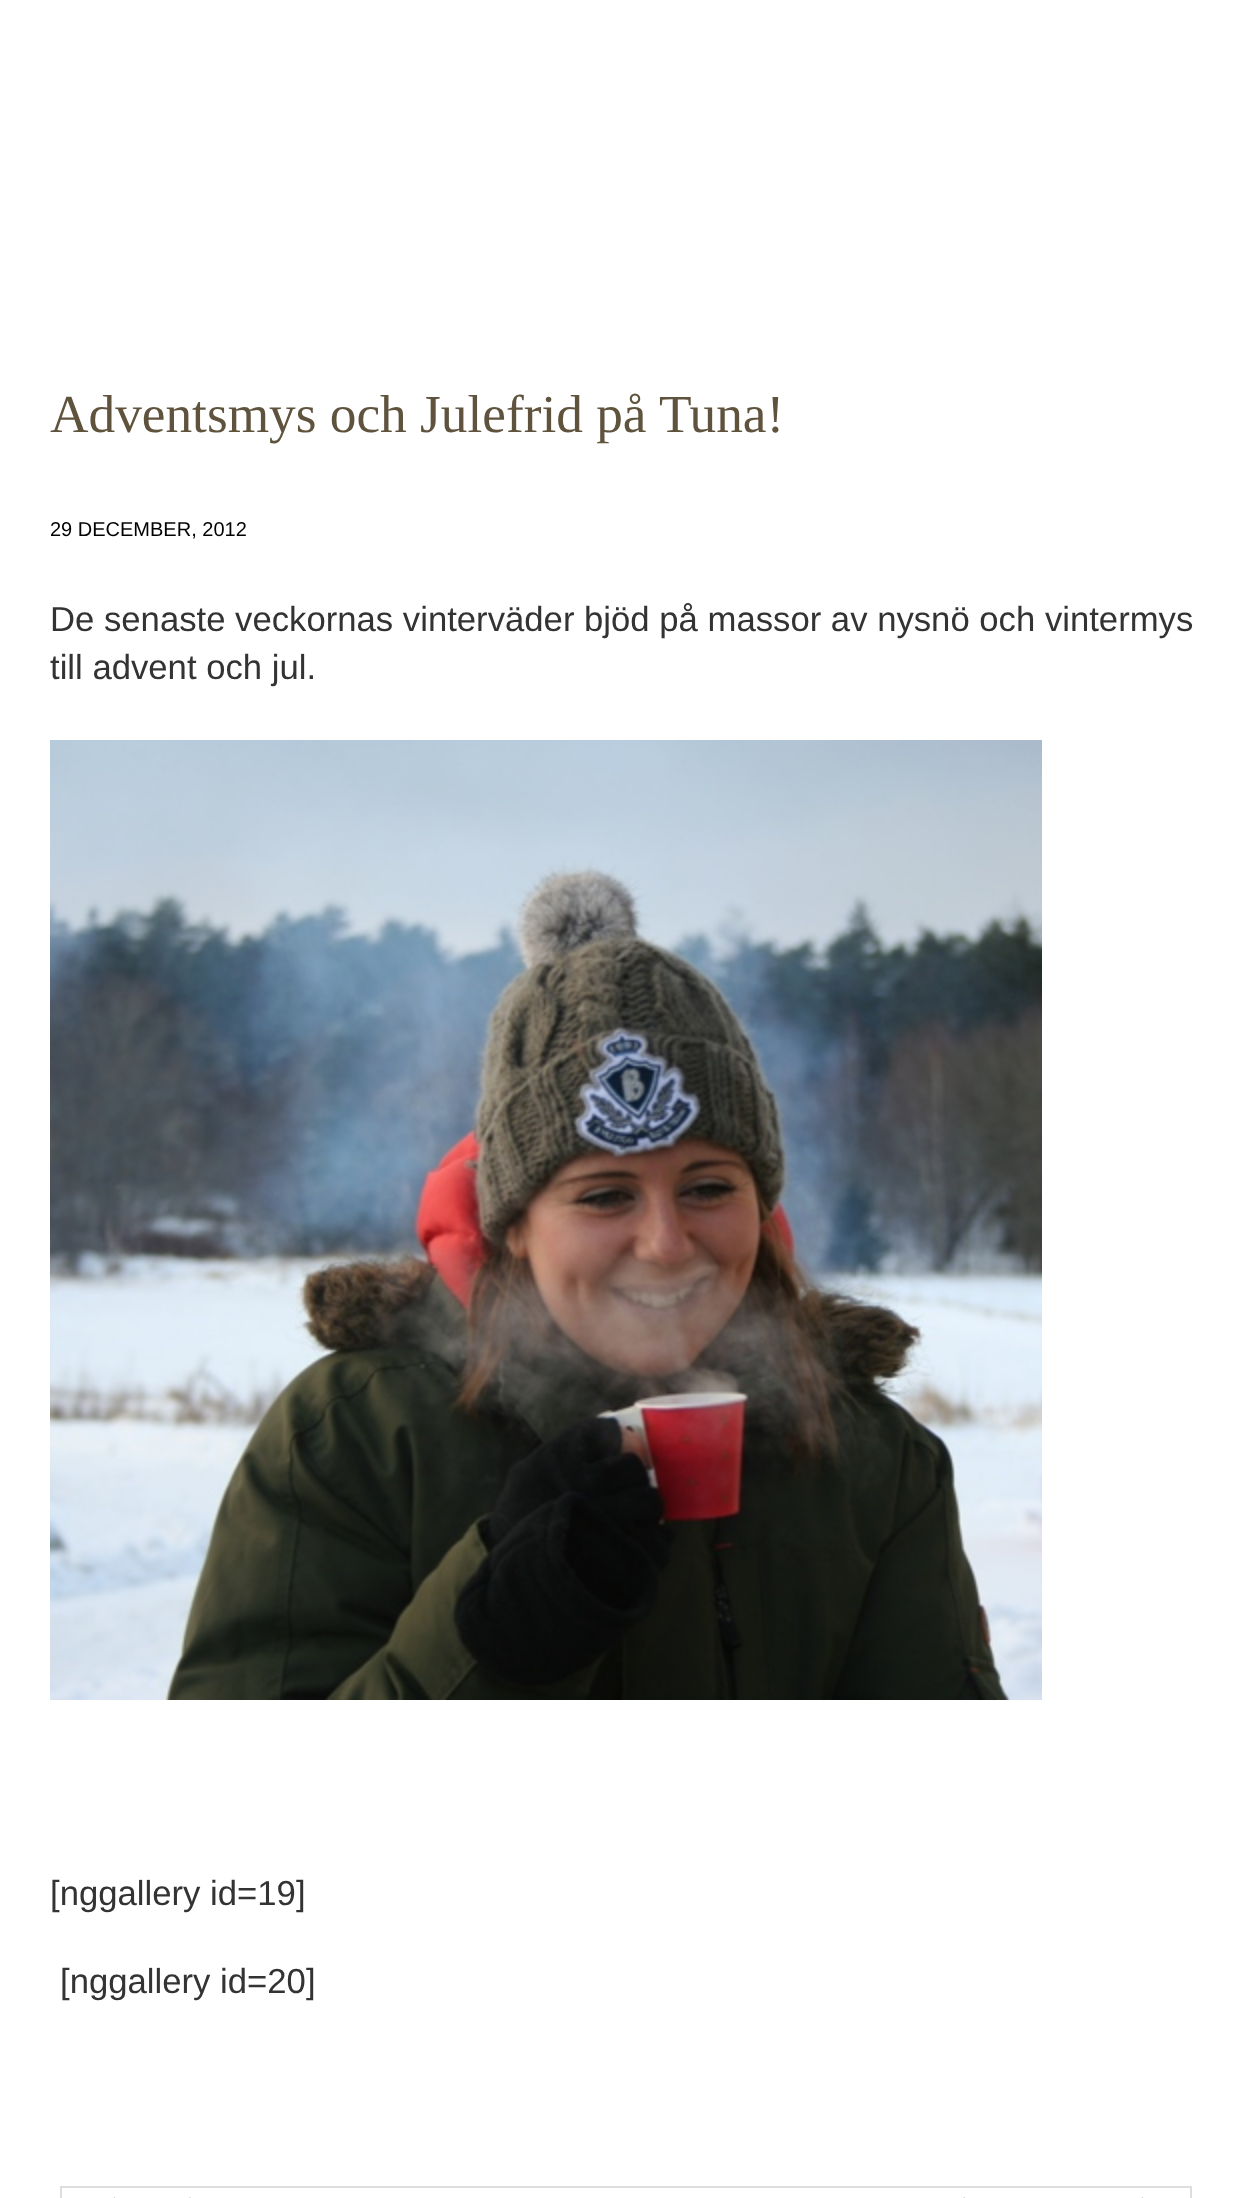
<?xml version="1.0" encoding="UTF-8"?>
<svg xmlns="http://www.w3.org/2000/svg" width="1252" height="2198">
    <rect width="100%" height="100%" fill="#FFFFFF"/>
    <text x="50" y="432" font-family="Liberation Serif" font-size="53.3" fill="#5F533D">Adventsmys och Julefrid på Tuna!</text>
    <text x="50" y="536" font-family="Liberation Sans" font-size="20" fill="#000000">29 DECEMBER, 2012</text>
    <text font-family="Liberation Sans" font-size="34.7" fill="#333333">
        <tspan x="50" y="631">De senaste veckornas vinterväder bjöd på massor av nysnö och vintermys</tspan>
        <tspan x="50" y="679">till advent och jul.</tspan>
    </text>
    <image x="50" y="740" width="992" height="960" href="img_01.png"/>
    <text x="50" y="1905" font-family="Liberation Sans" font-size="34.7" fill="#333333">[nggallery id=19]</text>
    <text x="60" y="1993" font-family="Liberation Sans" font-size="34.7" fill="#333333">[nggallery id=20]</text>
    <image x="60" y="2186" width="1132" height="12" href="img_02.png"/>
</svg>
